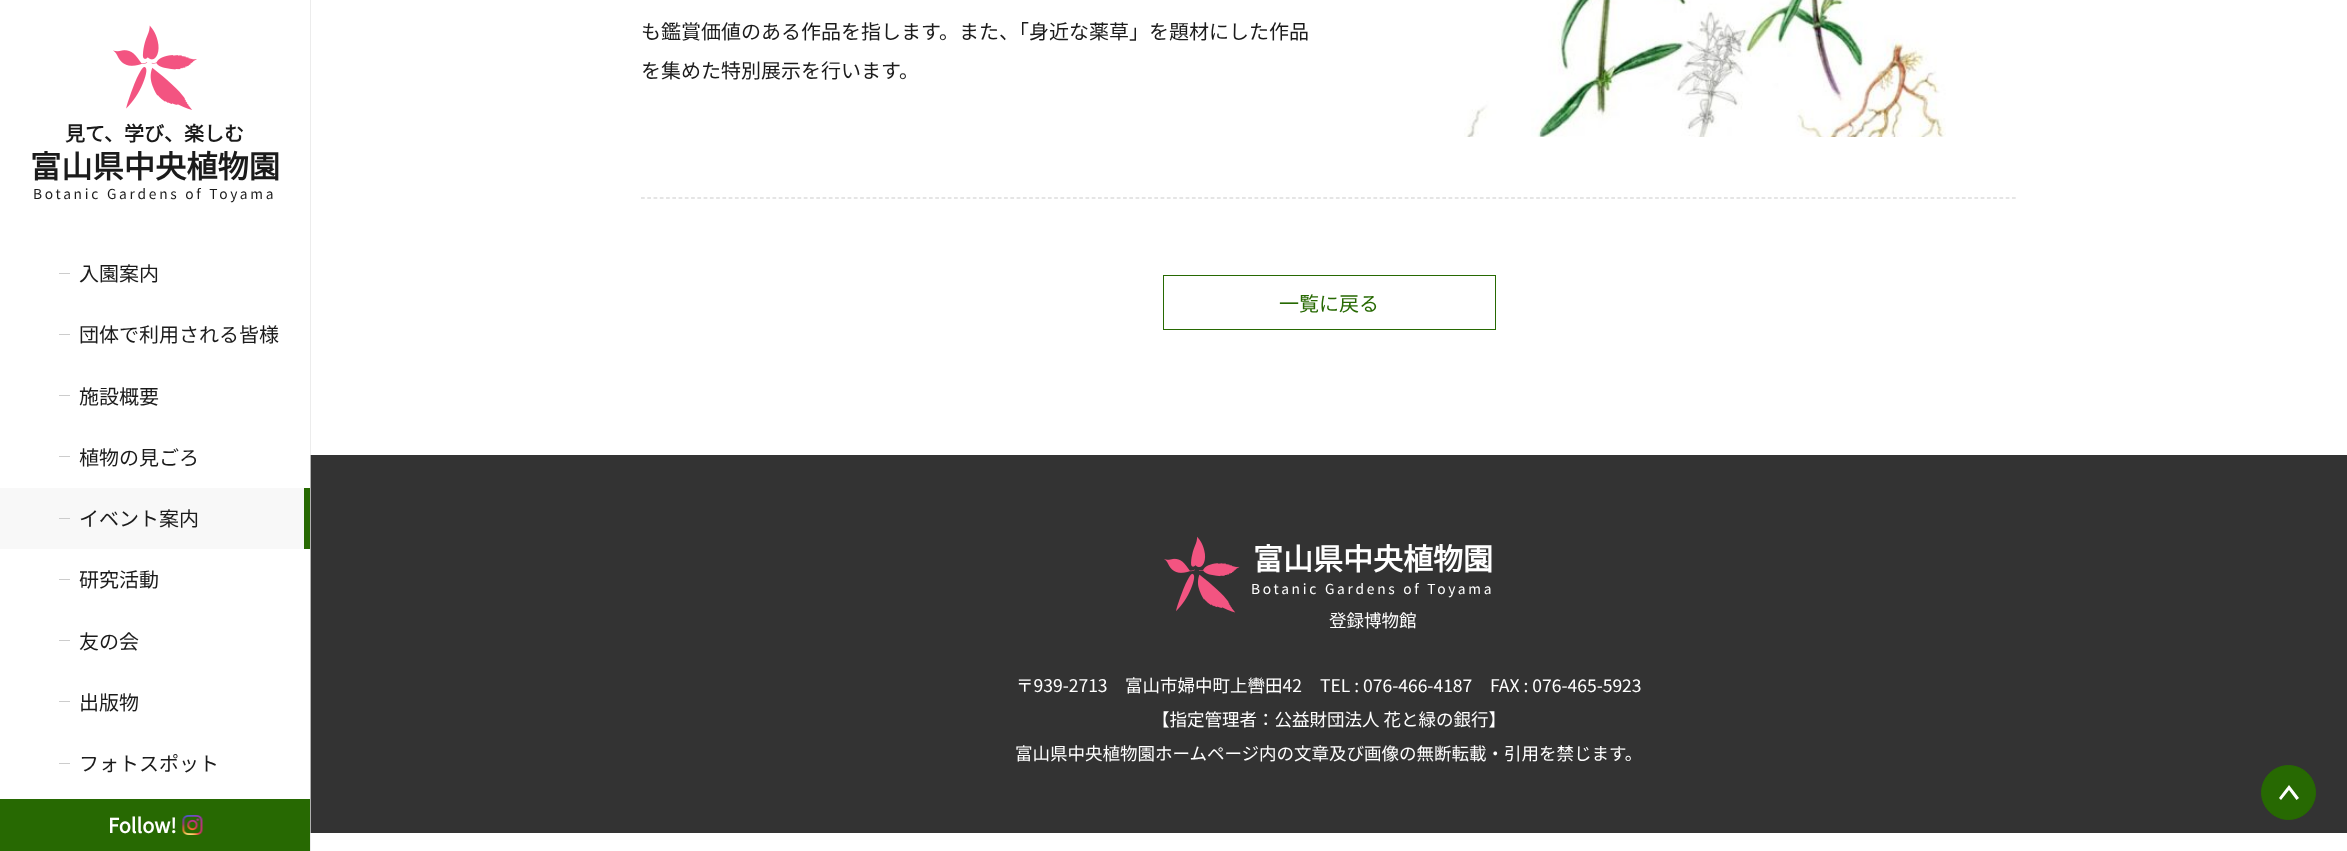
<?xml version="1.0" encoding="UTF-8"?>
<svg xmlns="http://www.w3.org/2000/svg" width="2347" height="851">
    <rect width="100%" height="100%" fill="#FFFFFF"/>
    <rect x="310" y="0" width="1" height="455" fill="#ECECEC"/>
    <image x="113" y="25" width="84" height="85" href="img_01.png"/>
    <text x="65" y="141" font-family="Noto Sans JP" font-size="20" font-weight="700" fill="#1B1B1B">見て、学び、楽しむ</text>
    <text x="30" y="178" font-family="Noto Sans JP" font-size="31.25" font-weight="700" fill="#1B1B1B">富山県中央植物園</text>
    <text x="33" y="199" font-family="Noto Sans JP" font-size="13.75" font-weight="100" letter-spacing="2.75" fill="#1B1B1B">Botanic Gardens of Toyama</text>
    <rect x="59" y="273" width="11" height="1" fill="#CCCCCC"/>
    <text x="79" y="281" font-family="Noto Sans JP" font-size="20" font-weight="100" fill="#1B1B1B">入園案内</text>
    <rect x="59" y="334" width="11" height="1" fill="#CCCCCC"/>
    <text x="79" y="342" font-family="Noto Sans JP" font-size="20" font-weight="100" fill="#1B1B1B">団体で利用される皆様</text>
    <rect x="59" y="395" width="11" height="1" fill="#CCCCCC"/>
    <text x="79" y="404" font-family="Noto Sans JP" font-size="20" font-weight="100" fill="#1B1B1B">施設概要</text>
    <rect x="59" y="456" width="11" height="1" fill="#CCCCCC"/>
    <text x="79" y="465" font-family="Noto Sans JP" font-size="20" font-weight="100" fill="#1B1B1B">植物の見ごろ</text>
    <rect x="0" y="488" width="304" height="61" fill="#F8F8F8"/>
    <rect x="304" y="488" width="6" height="61" fill="#276902"/>
    <rect x="59" y="518" width="11" height="1" fill="#CCCCCC"/>
    <text x="79" y="526" font-family="Noto Sans JP" font-size="20" font-weight="100" fill="#1B1B1B">イベント案内</text>
    <rect x="59" y="579" width="11" height="1" fill="#CCCCCC"/>
    <text x="79" y="587" font-family="Noto Sans JP" font-size="20" font-weight="100" fill="#1B1B1B">研究活動</text>
    <rect x="59" y="640" width="11" height="1" fill="#CCCCCC"/>
    <text x="79" y="649" font-family="Noto Sans JP" font-size="20" font-weight="100" fill="#1B1B1B">友の会</text>
    <rect x="59" y="701" width="11" height="1" fill="#CCCCCC"/>
    <text x="79" y="710" font-family="Noto Sans JP" font-size="20" font-weight="100" fill="#1B1B1B">出版物</text>
    <rect x="59" y="763" width="11" height="1" fill="#CCCCCC"/>
    <text x="79" y="771" font-family="Noto Sans JP" font-size="20" font-weight="100" fill="#1B1B1B">フォトスポット</text>
    <rect x="0" y="799" width="310" height="52" fill="#276902"/>
    <text x="108" y="833" font-family="Noto Sans JP" font-size="20" font-weight="700" fill="#FFFFFF">Follow!</text>
    <image x="182" y="815" width="21" height="20" href="img_02.png"/>
    <path d="M 641 198 H 2016" fill="none" stroke="#CCCCCC" stroke-width="1.2" stroke-dasharray="3.75 2.51"/>
    <text font-family="Noto Sans JP" font-size="20" font-weight="100" fill="#1B1B1B">
        <tspan x="641" y="39">も鑑賞価値のある作品を指します。また、「身近な薬草」を題材にした作品</tspan>
        <tspan x="641" y="78">を集めた特別展示を行います。</tspan>
    </text>
    <image x="1464" y="0" width="482" height="137" href="img_03.png"/>
    <rect x="1163.5" y="275.5" width="332" height="54" fill="none" stroke="#276902"/>
    <text x="1279" y="311" font-family="Noto Sans JP" font-size="20" font-weight="100" fill="#276902">一覧に戻る</text>
    <rect x="311" y="455" width="2036" height="378" fill="#333333"/>
    <rect x="310" y="455" width="1" height="378" fill="#AFAFAF"/>
    <image x="1164" y="536" width="76" height="77" href="img_04.png"/>
    <text x="1253" y="570" font-family="Noto Sans JP" font-size="30" font-weight="700" fill="#FFFFFF">富山県中央植物園</text>
    <text x="1251" y="594" font-family="Noto Sans JP" font-size="13.75" font-weight="100" letter-spacing="2.75" fill="#FFFFFF">Botanic Gardens of Toyama</text>
    <text x="1329" y="627" font-family="Noto Sans JP" font-size="17.5" font-weight="100" fill="#FFFFFF">登録博物館</text>
    <text x="1016" y="692" font-family="Noto Sans JP" font-size="17.5" font-weight="100" fill="#FFFFFF">〒939-2713　富山市婦中町上轡田42</text>
    <text x="1320" y="692" font-family="Noto Sans JP" font-size="17.5" font-weight="100" fill="#FFFFFF">TEL : 076-466-4187</text>
    <text x="1490" y="692" font-family="Noto Sans JP" font-size="17.5" font-weight="100" fill="#FFFFFF">FAX : 076-465-5923</text>
    <text x="1152" y="726" font-family="Noto Sans JP" font-size="17.5" font-weight="100" fill="#FFFFFF">【指定管理者：公益財団法人 花と緑の銀行】</text>
    <text x="1015" y="760" font-family="Noto Sans JP" font-size="17.5" font-weight="100" fill="#FFFFFF">富山県中央植物園ホームページ内の文章及び画像の無断転載・引用を禁じます。</text>
    <rect x="310" y="833" width="1" height="18" fill="#ECECEC"/>
    <circle cx="2288.5" cy="792.5" r="27" fill="#276902" stroke="#276902"/>
    <path d="M 2299 798 L 2289 785 L 2279 798 L 2281 800 L 2289 790 L 2296.5 800 Z" fill="#FFFFFF"/>
</svg>
